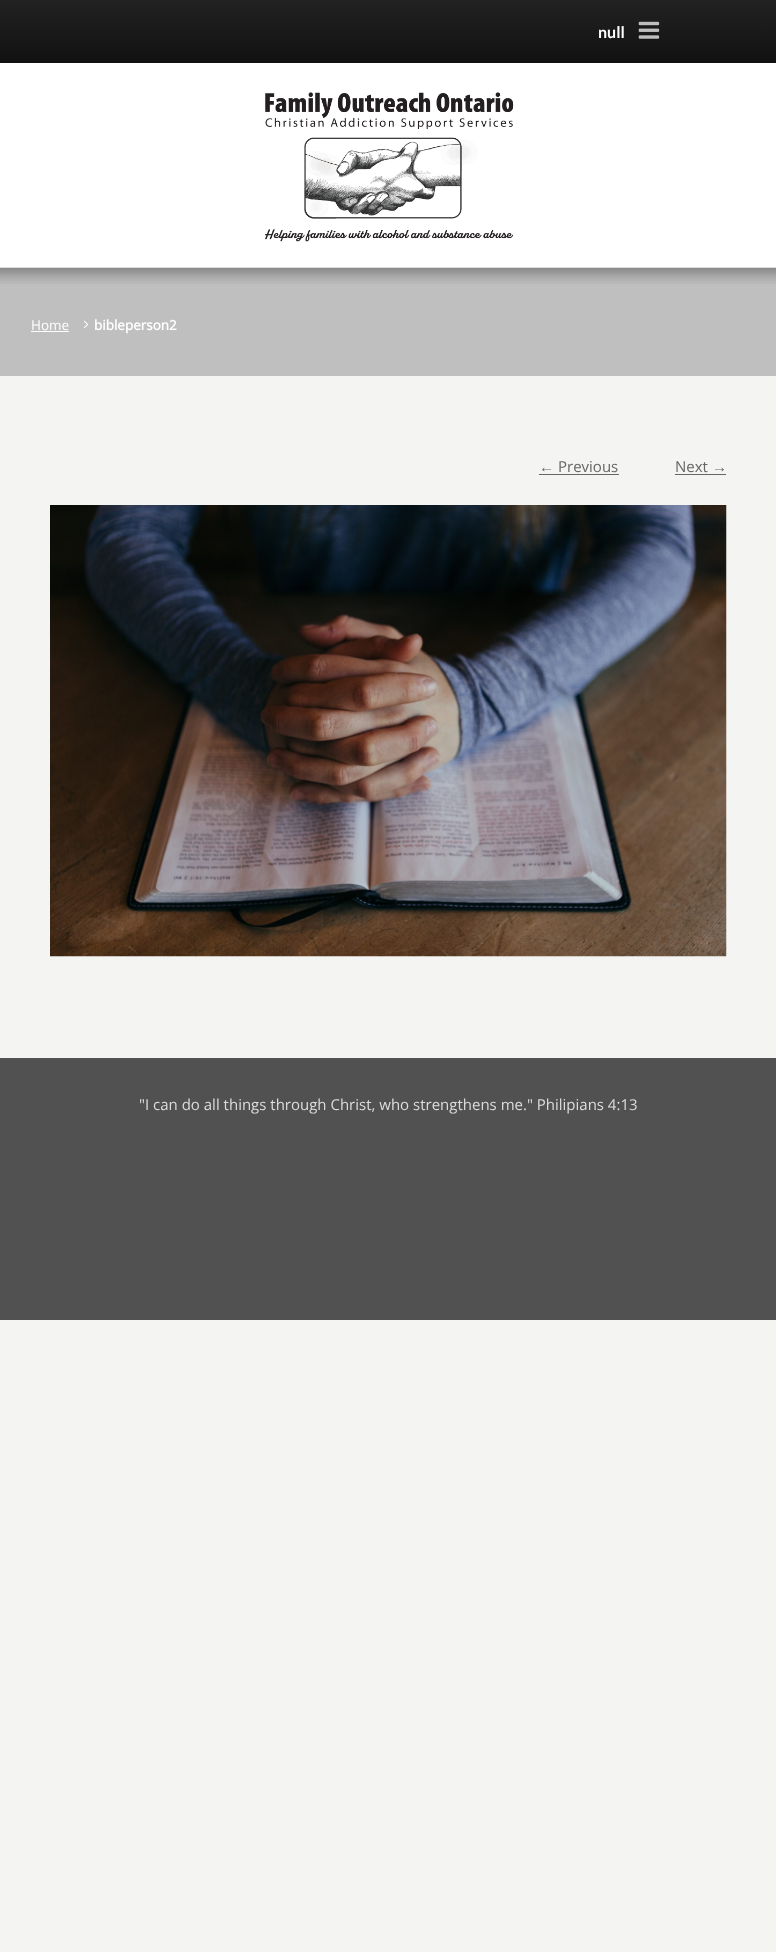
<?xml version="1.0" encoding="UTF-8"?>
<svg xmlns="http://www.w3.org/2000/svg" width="776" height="1952">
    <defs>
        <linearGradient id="g1" gradientUnits="userSpaceOnUse" x1="388" y1="0" x2="388" y2="63"><stop offset="0" stop-color="#222222"/><stop offset="1" stop-color="#111111"/></linearGradient>
    </defs>
    <rect width="100%" height="100%" fill="#F4F4F2"/>
    <rect x="0" y="0" width="776" height="63" fill="url(#g1)"/>
    <text x="598" y="38" font-family="Lato" font-size="16" font-weight="700" fill="#FFFFFF">null</text>
    <image x="638" y="21" width="22" height="18" href="img_01.png"/>
    <rect x="0" y="63" width="776" height="205" fill="#FFFFFF"/>
    <image x="265" y="92" width="249" height="150" href="img_02.png"/>
    <rect x="0" y="268" width="776" height="108" fill="#BFBFBF"/>
    <image x="0" y="267" width="776" height="17" href="img_03.png"/>
    <text x="31" y="330" font-family="Open Sans" font-size="13.5" fill="#FFFFFF">Home</text>
    <rect x="31" y="331" width="38" height="1" fill="#FFFFFF"/>
    <image x="84" y="320" width="5" height="8" href="img_04.png"/>
    <text x="94" y="330" font-family="Open Sans" font-size="13.5" font-weight="700" fill="#FFFFFF">bibleperson2</text>
    <text x="539" y="472" font-family="Liberation Sans" font-size="15" fill="#666666">←</text>
    <rect x="539" y="474" width="80" height="1" fill="#666666"/>
    <text x="558" y="472" font-family="Open Sans" font-size="15" fill="#666666">Previous</text>
    <text x="675" y="472" font-family="Open Sans" font-size="15" fill="#666666">Next</text>
    <text x="712" y="472" font-family="Liberation Sans" font-size="15" fill="#666666">→</text>
    <rect x="675" y="474" width="51" height="1" fill="#666666"/>
    <image x="50" y="505" width="677" height="452" href="img_05.png"/>
    <rect x="0" y="1058" width="776" height="262" fill="#515151"/>
    <text x="139" y="1110" font-family="Open Sans" font-size="15" fill="#DDDDDD">"I can do all things through Christ, who strengthens me." Philipians 4:13</text>
</svg>
